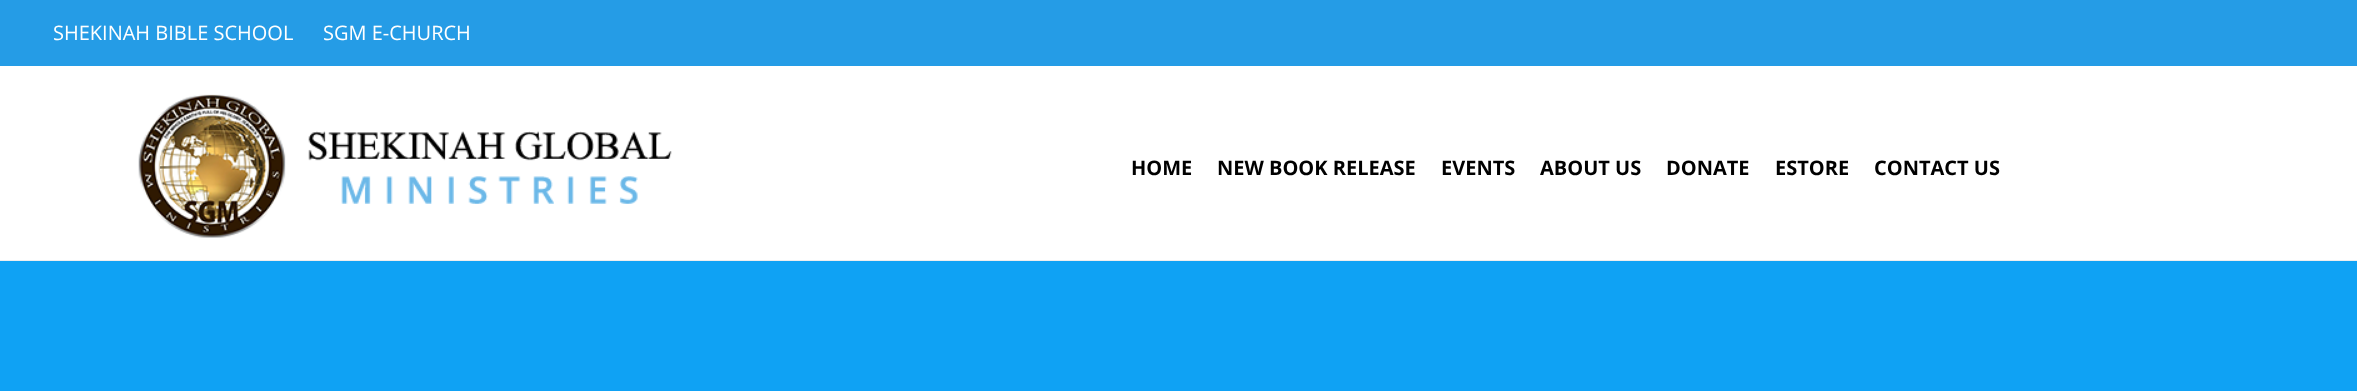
<?xml version="1.0" encoding="UTF-8"?>
<svg xmlns="http://www.w3.org/2000/svg" width="2357" height="391">
    <rect width="100%" height="100%" fill="#259CE6"/>
    <text x="53" y="40" font-family="Open Sans" font-size="20" fill="#FFFFFF">SHEKINAH BIBLE SCHOOL</text>
    <text x="323" y="40" font-family="Open Sans" font-size="20" fill="#FFFFFF">SGM E-CHURCH</text>
    <rect x="0" y="66" width="2357" height="194" fill="#FFFFFF"/>
    <rect x="0" y="260" width="2357" height="1" fill="#EEEEEE"/>
    <image x="138" y="94" width="534" height="144" href="img_01.png"/>
    <text x="1131" y="175" font-family="Open Sans" font-size="20" font-weight="700" fill="#000000">HOME</text>
    <text x="1217" y="175" font-family="Open Sans" font-size="20" font-weight="700" fill="#000000">NEW BOOK RELEASE</text>
    <text x="1441" y="175" font-family="Open Sans" font-size="20" font-weight="700" fill="#000000">EVENTS</text>
    <text x="1540" y="175" font-family="Open Sans" font-size="20" font-weight="700" fill="#000000">ABOUT US</text>
    <text x="1666" y="175" font-family="Open Sans" font-size="20" font-weight="700" fill="#000000">DONATE</text>
    <text x="1775" y="175" font-family="Open Sans" font-size="20" font-weight="700" fill="#000000">ESTORE</text>
    <text x="1874" y="175" font-family="Open Sans" font-size="20" font-weight="700" fill="#000000">CONTACT US</text>
    <rect x="0" y="261" width="2357" height="130" fill="#0FA2F4"/>
</svg>
